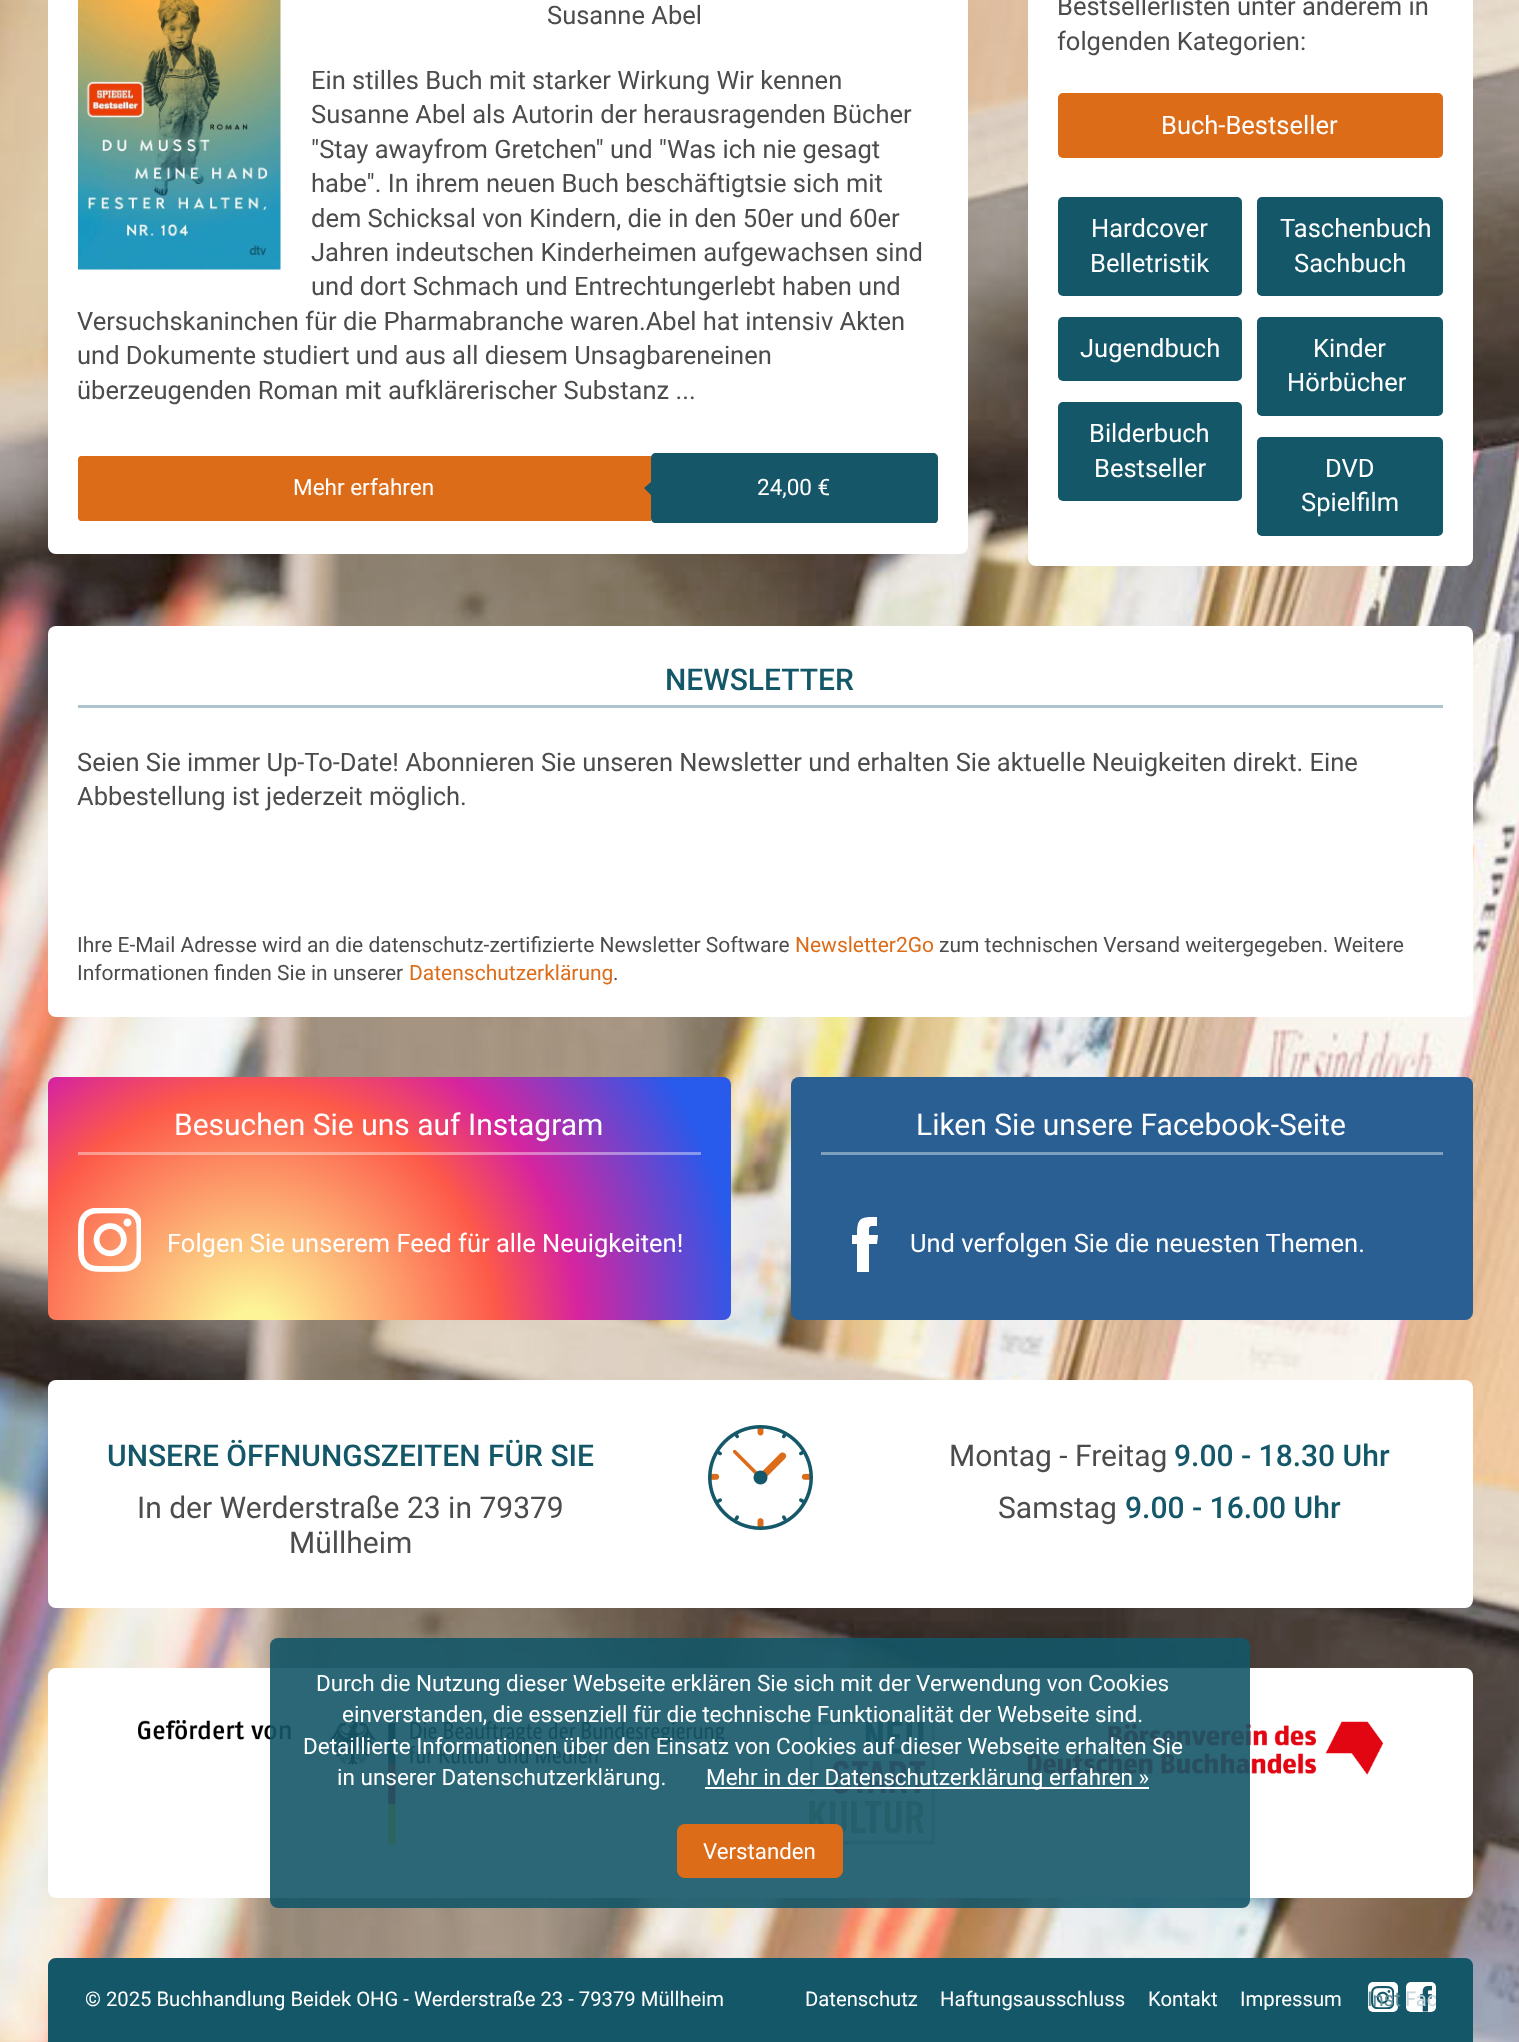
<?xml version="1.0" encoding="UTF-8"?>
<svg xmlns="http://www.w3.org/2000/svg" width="1519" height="2042">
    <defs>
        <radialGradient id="g1" gradientUnits="userSpaceOnUse" cx="253" cy="1337" r="544"><stop offset="0" stop-color="#FDF497"/><stop offset="0.05" stop-color="#FDF497"/><stop offset="0.45" stop-color="#FD5949"/><stop offset="0.6" stop-color="#D6249F"/><stop offset="0.9" stop-color="#285AEB"/></radialGradient>
        <clipPath id="clip1"><rect x="86" y="1982" width="639" height="52"/></clipPath>
        <clipPath id="clip2"><rect x="1361" y="1982" width="75" height="48"/></clipPath>
    </defs>
    <rect width="100%" height="100%" fill="#FFFFFF"/>
    <image x="0" y="0" width="1519" height="2042" href="img_01.png"/>
    <rect x="48" y="-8" width="920" height="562" rx="8" fill="#FFFFFF"/>
    <image x="78" y="0" width="203" height="270" href="img_02.png"/>
    <text x="547" y="24" font-family="Roboto" font-size="25.5" fill="#4C4C4C">Susanne Abel</text>
    <text font-family="Roboto" font-size="25.5" fill="#4C4C4C">
        <tspan x="311" y="89">Ein stilles Buch mit starker Wirkung Wir kennen</tspan>
        <tspan x="311" y="123">Susanne Abel als Autorin der herausragenden Bücher</tspan>
        <tspan x="311" y="158">"Stay awayfrom Gretchen" und "Was ich nie gesagt</tspan>
        <tspan x="311" y="192">habe". In ihrem neuen Buch beschäftigtsie sich mit</tspan>
        <tspan x="311" y="227">dem Schicksal von Kindern, die in den 50er und 60er</tspan>
        <tspan x="311" y="261">Jahren indeutschen Kinderheimen aufgewachsen sind</tspan>
        <tspan x="311" y="295">und dort Schmach und Entrechtungerlebt haben und</tspan>
    </text>
    <text font-family="Roboto" font-size="25.5" fill="#4C4C4C">
        <tspan x="77" y="330">Versuchskaninchen für die Pharmabranche waren.Abel hat intensiv Akten</tspan>
        <tspan x="77" y="364">und Dokumente studiert und aus all diesem Unsagbareneinen</tspan>
        <tspan x="77" y="399">überzeugenden Roman mit aufklärerischer Substanz ...</tspan>
    </text>
    <path d="M 81 456 H 651 V 521 H 81 C 79.5 521 78 519.5 78 518 V 459 C 78 457.5 79.5 456 81 456 Z" fill="#DD6C19"/>
    <text x="293" y="495" font-family="Roboto" font-size="22.5" fill="#FFFFFF">Mehr erfahren</text>
    <path d="M 933 453 H 656 C 653 453 651 455 651 458 V 482 L 644 488 L 651 495 V 518 C 651 521 653 523 656 523 H 936 C 937 522 938 521 938 519 V 458 C 938 455 936 453 933 453 Z" fill="#155768"/>
    <text x="757" y="495" font-family="Roboto" font-size="22.5" fill="#FFFFFF">24,00 €</text>
    <rect x="1028" y="-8" width="445" height="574" rx="8" fill="#FFFFFF"/>
    <text font-family="Roboto" font-size="25.5" fill="#4C4C4C">
        <tspan x="1057" y="15">Bestsellerlisten unter anderem in</tspan>
        <tspan x="1057" y="50">folgenden Kategorien:</tspan>
    </text>
    <rect x="1058" y="93" width="385" height="65" rx="5" fill="#DD6C19"/>
    <text x="1161" y="134" font-family="Roboto" font-size="25.5" fill="#FFFFFF">Buch-Bestseller</text>
    <rect x="1058" y="197" width="184" height="99" rx="5" fill="#145768"/>
    <text x="1091" y="237" font-family="Roboto" font-size="25.5" fill="#FFFFFF">Hardcover</text>
    <text x="1090" y="272" font-family="Roboto" font-size="25.5" fill="#FFFFFF">Belletristik</text>
    <rect x="1257" y="197" width="186" height="99" rx="5" fill="#145768"/>
    <text x="1280" y="237" font-family="Roboto" font-size="25.5" fill="#FFFFFF">Taschenbuch</text>
    <text x="1294" y="272" font-family="Roboto" font-size="25.5" fill="#FFFFFF">Sachbuch</text>
    <rect x="1058" y="317" width="184" height="64" rx="5" fill="#145768"/>
    <text x="1080" y="357" font-family="Roboto" font-size="25.5" fill="#FFFFFF">Jugendbuch</text>
    <rect x="1257" y="317" width="186" height="99" rx="5" fill="#145768"/>
    <text x="1313" y="357" font-family="Roboto" font-size="25.5" fill="#FFFFFF">Kinder</text>
    <text x="1287" y="391" font-family="Roboto" font-size="25.5" fill="#FFFFFF">Hörbücher</text>
    <rect x="1058" y="402" width="184" height="99" rx="5" fill="#145768"/>
    <text x="1089" y="442" font-family="Roboto" font-size="25.5" fill="#FFFFFF">Bilderbuch</text>
    <text x="1094" y="477" font-family="Roboto" font-size="25.5" fill="#FFFFFF">Bestseller</text>
    <rect x="1257" y="437" width="186" height="99" rx="5" fill="#145768"/>
    <text x="1325" y="477" font-family="Roboto" font-size="25.5" fill="#FFFFFF">DVD</text>
    <text x="1301" y="511" font-family="Roboto" font-size="25.5" fill="#FFFFFF">Spielfilm</text>
    <rect x="48" y="626" width="1425" height="391" rx="8" fill="#FFFFFF"/>
    <rect x="78" y="705" width="1365" height="3" fill="#ADC4CA"/>
    <text x="665" y="690" font-family="Roboto" font-size="30" font-weight="500" fill="#145768">NEWSLETTER</text>
    <text font-family="Roboto" font-size="25.5" fill="#4C4C4C">
        <tspan x="77" y="771">Seien Sie immer Up-To-Date! Abonnieren Sie unseren Newsletter und erhalten Sie aktuelle Neuigkeiten direkt. Eine</tspan>
        <tspan x="77" y="805">Abbestellung ist jederzeit möglich.</tspan>
    </text>
    <text x="77" y="952" font-family="Roboto" font-size="21" fill="#4C4C4C">Ihre E-Mail Adresse wird an die datenschutz-zertifizierte Newsletter Software</text>
    <text x="795" y="952" font-family="Roboto" font-size="21" fill="#DD6C19">Newsletter2Go</text>
    <text x="939" y="952" font-family="Roboto" font-size="21" fill="#4C4C4C">zum technischen Versand weitergegeben. Weitere</text>
    <text x="77" y="980" font-family="Roboto" font-size="21" fill="#4C4C4C">Informationen finden Sie in unserer</text>
    <text x="409" y="980" font-family="Roboto" font-size="21" fill="#DD6C19">Datenschutzerklärung</text>
    <text x="613" y="980" font-family="Roboto" font-size="21" fill="#4C4C4C">.</text>
    <rect x="48" y="1077" width="683" height="243" rx="8" fill="url(#g1)"/>
    <rect x="78" y="1152" width="623" height="3" fill="#FFFFFF" fill-opacity="0.4"/>
    <text x="174" y="1135" font-family="Roboto" font-size="30" fill="#FFFFFF">Besuchen Sie uns auf Instagram</text>
    <image x="78" y="1208" width="63" height="64" href="img_03.png"/>
    <text x="167" y="1252" font-family="Roboto" font-size="25.5" fill="#FFFFFF">Folgen Sie unserem Feed für alle Neuigkeiten!</text>
    <rect x="791" y="1077" width="682" height="243" rx="8" fill="#295F93"/>
    <rect x="821" y="1152" width="622" height="3" fill="#7F9FBE"/>
    <text x="916" y="1135" font-family="Roboto" font-size="30" fill="#FFFFFF">Liken Sie unsere Facebook-Seite</text>
    <path d="M 878 1235 H 869 C 869 1225 868 1226 877 1226 V 1217 C 861 1217 857 1217 857 1235 H 852 V 1244 H 857 V 1272 H 869 V 1244 H 877 Z" fill="#FFFFFF"/>
    <text x="910" y="1252" font-family="Roboto" font-size="25.5" fill="#FFFFFF">Und verfolgen Sie die neuesten Themen.</text>
    <rect x="48" y="1380" width="1425" height="228" rx="8" fill="#FFFFFF"/>
    <text x="107" y="1466" font-family="Roboto" font-size="30" font-weight="500" fill="#145768">UNSERE ÖFFNUNGSZEITEN FÜR SIE</text>
    <text x="137" y="1518" font-family="Roboto" font-size="30" fill="#4C4C4C">In der Werderstraße 23 in 79379</text>
    <text x="289" y="1553" font-family="Roboto" font-size="30" fill="#4C4C4C">Müllheim</text>
    <image x="708" y="1425" width="105" height="105" href="img_04.png"/>
    <text x="949" y="1466" font-family="Roboto" font-size="30" fill="#4C4C4C">Montag - Freitag</text>
    <text x="1174" y="1466" font-family="Roboto" font-size="30" font-weight="500" fill="#145768">9.00 - 18.30 Uhr</text>
    <text x="998" y="1518" font-family="Roboto" font-size="30" fill="#4C4C4C">Samstag</text>
    <text x="1125" y="1518" font-family="Roboto" font-size="30" font-weight="500" fill="#145768">9.00 - 16.00 Uhr</text>
    <rect x="48" y="1668" width="1425" height="230" rx="8" fill="#FFFFFF"/>
    <image x="138" y="1720" width="1245" height="125" href="img_05.png"/>
    <path d="M 56 1958 H 1465 C 1469.5 1958 1473 1961.5 1473 1966 V 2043 H 48 V 1966 C 48 1961.5 51.5 1958 56 1958 Z" fill="#145768"/>
    <g clip-path="url(#clip1)">
        <text x="85" y="2006" font-family="Roboto" font-size="20.25" fill="#FFFFFF">© 2025 Buchhandlung Beidek OHG - Werderstraße 23 - 79379 Müllheim</text>
    </g>
    <text x="805" y="2006" font-family="Roboto" font-size="20.25" fill="#FFFFFF">Datenschutz</text>
    <text x="940" y="2006" font-family="Roboto" font-size="20.25" fill="#FFFFFF">Haftungsausschluss</text>
    <text x="1148" y="2006" font-family="Roboto" font-size="20.25" fill="#FFFFFF">Kontakt</text>
    <text x="1240" y="2006" font-family="Roboto" font-size="20.25" fill="#FFFFFF">Impressum</text>
    <rect x="1368" y="1982" width="30" height="30" rx="5" fill="#FFFFFF"/>
    <image x="1371" y="1986" width="23" height="23" href="img_06.png"/>
    <text x="1367" y="2006" font-family="Roboto" font-size="20.25" fill="#618E99">Inst</text>
    <rect x="1406" y="1982" width="30" height="30" rx="5" fill="#FFFFFF"/>
    <image x="1420" y="1985" width="12" height="27" href="img_07.png"/>
    <g clip-path="url(#clip2)">
        <text x="1405" y="2006" font-family="Roboto" font-size="20.25" fill="#C7D7DB">Fac</text>
    </g>
    <rect x="270" y="1638" width="980" height="270" rx="8" fill="#145768" fill-opacity="0.9"/>
    <text x="316" y="1691" font-family="Roboto" font-size="22.5" fill="#FFFFFF">Durch die Nutzung dieser Webseite erklären Sie sich mit der Verwendung von Cookies</text>
    <text x="342" y="1722" font-family="Roboto" font-size="22.5" fill="#FFFFFF">einverstanden, die essenziell für die technische Funktionalität der Webseite sind.</text>
    <text x="303" y="1754" font-family="Roboto" font-size="22.5" fill="#FFFFFF">Detaillierte Informationen über den Einsatz von Cookies auf dieser Webseite erhalten Sie</text>
    <text x="337" y="1785" font-family="Roboto" font-size="22.5" fill="#FFFFFF">in unserer Datenschutzerklärung.</text>
    <rect x="705" y="1787" width="444" height="2" fill="#FFFFFF"/>
    <text x="706" y="1785" font-family="Roboto" font-size="22.5" fill="#FFFFFF">Mehr in der Datenschutzerklärung erfahren »</text>
    <rect x="677" y="1824" width="166" height="54" rx="8" fill="#DD6C19"/>
    <text x="703" y="1859" font-family="Roboto" font-size="22.25" fill="#FFFFFF">Verstanden</text>
</svg>
